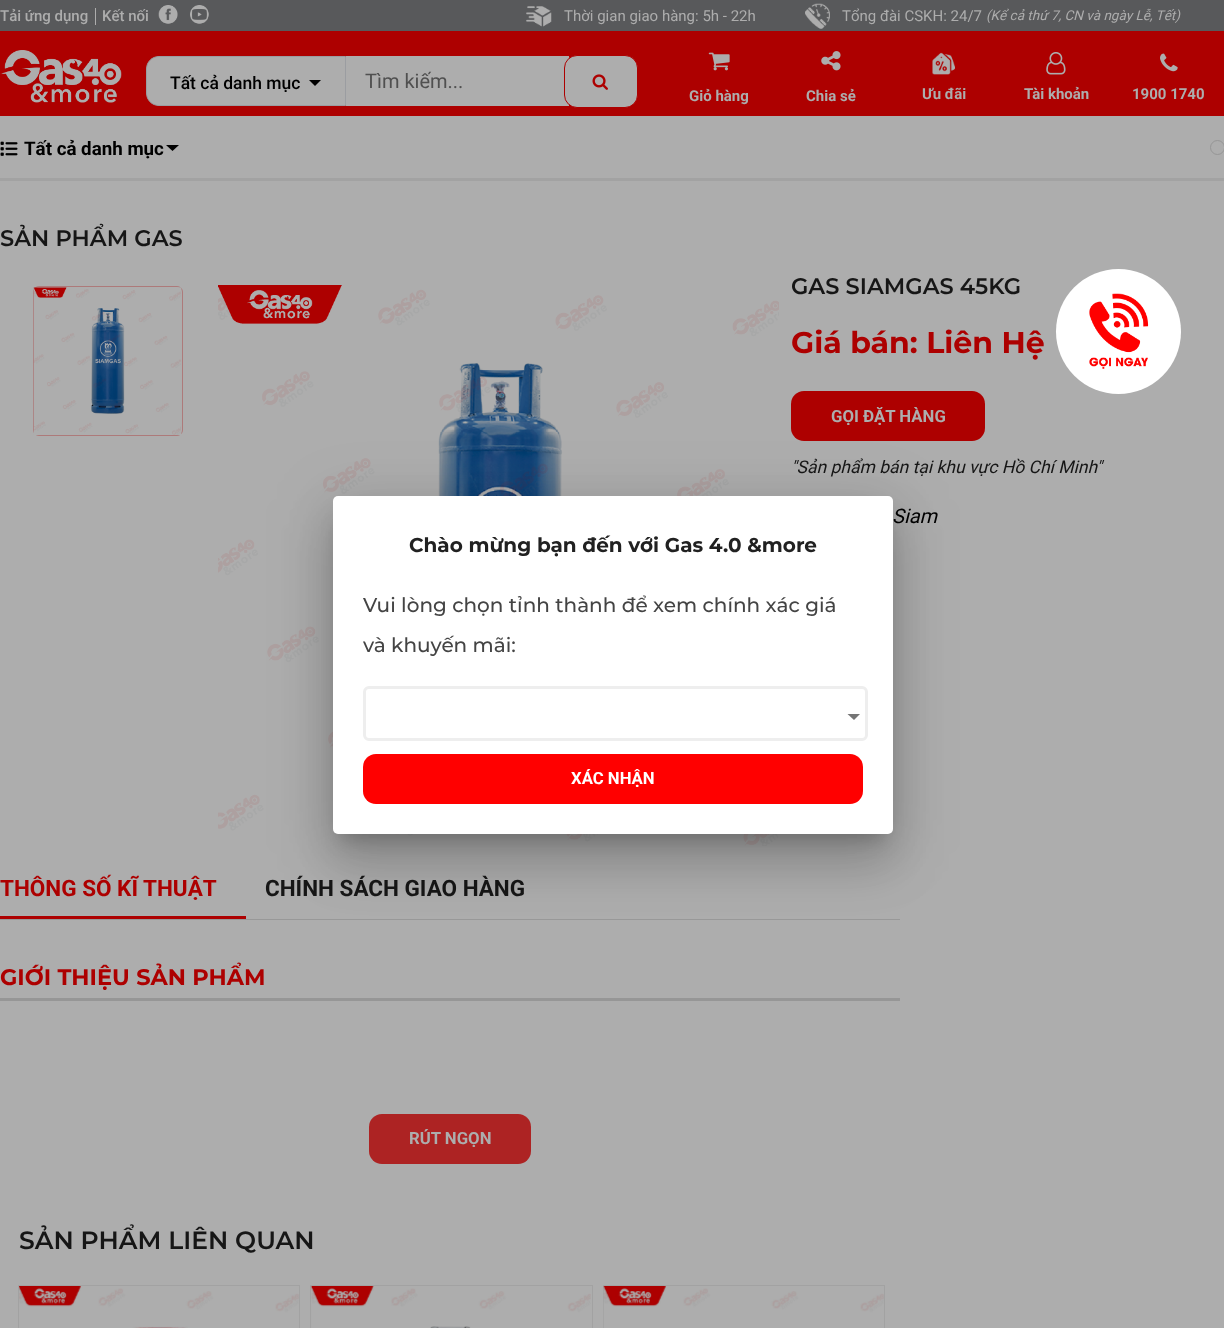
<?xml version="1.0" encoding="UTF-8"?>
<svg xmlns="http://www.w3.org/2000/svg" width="1224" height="1328">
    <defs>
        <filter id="blur1" x="-50%" y="-200%" width="200%" height="500%"><feGaussianBlur stdDeviation="29"/></filter>
        <filter id="blur2" x="-50%" y="-200%" width="200%" height="500%"><feGaussianBlur stdDeviation="24"/></filter>
        <filter id="blur3" x="-50%" y="-200%" width="200%" height="500%"><feGaussianBlur stdDeviation="9.5"/></filter>
    </defs>
    <rect width="100%" height="100%" fill="#ADADAD"/>
    <rect x="0" y="31" width="1224" height="85" fill="#AD0000"/>
    <rect x="0" y="0" width="1224" height="31" fill="#58595B"/>
    <text x="0" y="21" font-family="Roboto" font-size="15" font-weight="500" fill="#ADADAD">Tải ứng dụng</text>
    <rect x="95" y="8" width="1" height="17" fill="#ADADAD"/>
    <text x="102" y="21" font-family="Roboto" font-size="15" font-weight="500" fill="#ADADAD">Kết nối</text>
    <image x="158" y="5" width="20" height="19" href="img_01.png"/>
    <image x="190" y="5" width="19" height="19" href="img_02.png"/>
    <image x="526" y="6" width="26" height="21" href="img_03.png"/>
    <text x="564" y="21" font-family="Roboto" font-size="15" fill="#ADADAD">Thời gian giao hàng: 5h - 22h</text>
    <image x="805" y="3" width="25" height="26" href="img_04.png"/>
    <text x="842" y="21" font-family="Roboto" font-size="15" fill="#ADADAD">Tổng đài CSKH: 24/7</text>
    <text x="986" y="20" font-family="Roboto" font-size="13.5" font-style="italic" fill="#ADADAD">(Kể cả thứ 7, CN và ngày Lễ, Tết)</text>
    <image x="0" y="50" width="122" height="53" href="img_05.png"/>
    <path d="M 159 56.5 H 345.5 V 105.5 H 159 C 152 105.5 146.5 100 146.5 93 V 69 C 146.5 62 152 56.5 159 56.5 Z" fill="#ADADAD" stroke="#9B9DA1"/>
    <text x="170" y="89" font-family="Roboto" font-size="17.5" font-weight="500" fill="#000000">Tất cả danh mục</text>
    <path d="M 309 80 H 321 L 315 86 Z" fill="#000000"/>
    <rect x="346" y="56" width="223" height="50" fill="#ADADAD"/>
    <text x="365" y="88" font-family="Roboto" font-size="20" fill="#505050">Tìm kiếm...</text>
    <rect x="564.5" y="55.5" width="73" height="52" rx="12.5" fill="#ADADAD" stroke="#AD0000"/>
    <image x="592" y="74" width="16" height="16" href="img_06.png"/>
    <image x="708" y="52" width="22" height="19" href="img_07.png"/>
    <text x="689" y="101" font-family="Roboto" font-size="15" font-weight="700" fill="#ADADAD">Giỏ hàng</text>
    <image x="821" y="51" width="20" height="20" href="img_08.png"/>
    <text x="806" y="101" font-family="Roboto" font-size="15" font-weight="700" fill="#ADADAD">Chia sẻ</text>
    <image x="932" y="52" width="23" height="23" href="img_09.png"/>
    <text x="922" y="99" font-family="Roboto" font-size="15" font-weight="700" fill="#ADADAD">Ưu đãi</text>
    <image x="1046" y="52" width="20" height="23" href="img_10.png"/>
    <text x="1024" y="99" font-family="Roboto" font-size="15" font-weight="700" fill="#ADADAD">Tài khoản</text>
    <image x="1160" y="53" width="18" height="19" href="img_11.png"/>
    <text x="1132" y="99" font-family="Roboto" font-size="15" font-weight="700" fill="#ADADAD">1900 1740</text>
    <rect x="0" y="178" width="1224" height="3" fill="#A2A2A2"/>
    <image x="0" y="141" width="18" height="15" href="img_12.png"/>
    <text x="24" y="155" font-family="Roboto" font-size="18.75" font-weight="700" fill="#000000">Tất cả danh mục</text>
    <path d="M 166 145 H 179 L 172.5 151 Z" fill="#000000"/>
    <circle cx="1217.5" cy="147.5" r="7" fill="none" stroke="#969696"/>
    <text x="0" y="246" font-family="Montserrat" font-size="22.5" font-weight="600" fill="#161616">SẢN PHẨM GAS</text>
    <rect x="33.5" y="286.5" width="149" height="149" rx="5.5" fill="none" stroke="#AD7A7A"/>
    <image x="33" y="287" width="149" height="148" href="img_13.png"/>
    <image x="218" y="285" width="561" height="561" href="img_14.png"/>
    <text x="791" y="294" font-family="Montserrat" font-size="22.5" font-weight="600" fill="#161616">GAS SIAMGAS 45KG</text>
    <text x="791" y="353" font-family="Montserrat" font-size="30" font-weight="700" fill="#AD0000">Giá bán: Liên Hệ</text>
    <rect x="791" y="391" width="194" height="50" rx="13" fill="#AD0000"/>
    <text x="831" y="422" font-family="Roboto" font-size="16.75" font-weight="700" fill="#ADADAD">GỌI ĐẶT HÀNG</text>
    <text x="791" y="473" font-family="Roboto" font-size="17.5" font-style="italic" fill="#161616">"Sản phẩm bán tại khu vực Hồ Chí Minh"</text>
    <text x="892" y="523" font-family="Roboto" font-size="20" font-style="italic" fill="#000000">Siam</text>
    <rect x="0" y="919" width="900" height="1" fill="#989898"/>
    <text x="0" y="896" font-family="Roboto" font-size="22.5" font-weight="700" fill="#AD0000">THÔNG SỐ KĨ THUẬT</text>
    <text x="265" y="896" font-family="Roboto" font-size="22.5" font-weight="700" fill="#161616">CHÍNH SÁCH GIAO HÀNG</text>
    <rect x="0" y="916" width="246" height="3" fill="#AD0000"/>
    <rect x="0" y="998" width="900" height="3" fill="#969696"/>
    <text x="0" y="985" font-family="Montserrat" font-size="22.5" font-weight="700" fill="#AD0000">GIỚI THIỆU SẢN PHẨM</text>
    <rect x="369" y="1114" width="162" height="50" rx="13" fill="#AD2323"/>
    <text x="409" y="1144" font-family="Roboto" font-size="16.75" font-weight="700" fill="#ADADAD">RÚT NGỌN</text>
    <text x="19" y="1249" font-family="Montserrat" font-size="25" font-weight="600" fill="#161616">SẢN PHẨM LIÊN QUAN</text>
    <rect x="18.5" y="1285.5" width="281" height="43" fill="none" stroke="#A2A2A2"/>
    <image x="19" y="1286" width="280" height="42" href="img_15.png"/>
    <rect x="310.5" y="1285.5" width="282" height="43" fill="none" stroke="#A2A2A2"/>
    <image x="310" y="1286" width="281" height="42" href="img_16.png"/>
    <rect x="603.5" y="1285.5" width="281" height="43" fill="none" stroke="#A2A2A2"/>
    <image x="603" y="1286" width="281" height="42" href="img_17.png"/>
    <circle cx="1118.5" cy="331.5" r="62.5" fill="#FFFFFF"/>
    <image x="1089" y="293" width="60" height="76" href="img_18.png"/>
    <rect x="323" y="498" width="580" height="357" rx="15" fill="#000000" fill-opacity="0.12" filter="url(#blur1)"/>
    <rect x="329" y="523" width="567" height="345" rx="9" fill="#000000" fill-opacity="0.14" filter="url(#blur2)"/>
    <rect x="341" y="519" width="543" height="320" fill="#000000" fill-opacity="0.2" filter="url(#blur3)"/>
    <rect x="333" y="496" width="560" height="338" rx="5" fill="#FFFFFF"/>
    <text x="409" y="552" font-family="Montserrat" font-size="20" font-weight="700" fill="#212121">Chào mừng bạn đến với Gas 4.0 &amp;more</text>
    <text x="363" y="612" font-family="Montserrat" font-size="20" font-weight="500" fill="#444444">Vui lòng chọn tỉnh thành để xem chính xác giá</text>
    <text x="363" y="652" font-family="Montserrat" font-size="20" font-weight="500" fill="#444444">và khuyến mãi:</text>
    <rect x="364.5" y="687.5" width="502" height="52" rx="4.5" fill="none" stroke="#EEEEEE" stroke-width="3"/>
    <path d="M 847.5 714 H 860 L 854 720 Z" fill="#757575"/>
    <rect x="363" y="754" width="500" height="50" rx="13" fill="#FF0000"/>
    <text x="571" y="784" font-family="Roboto" font-size="16.75" font-weight="700" fill="#FFFFFF">XÁC NHẬN</text>
</svg>
